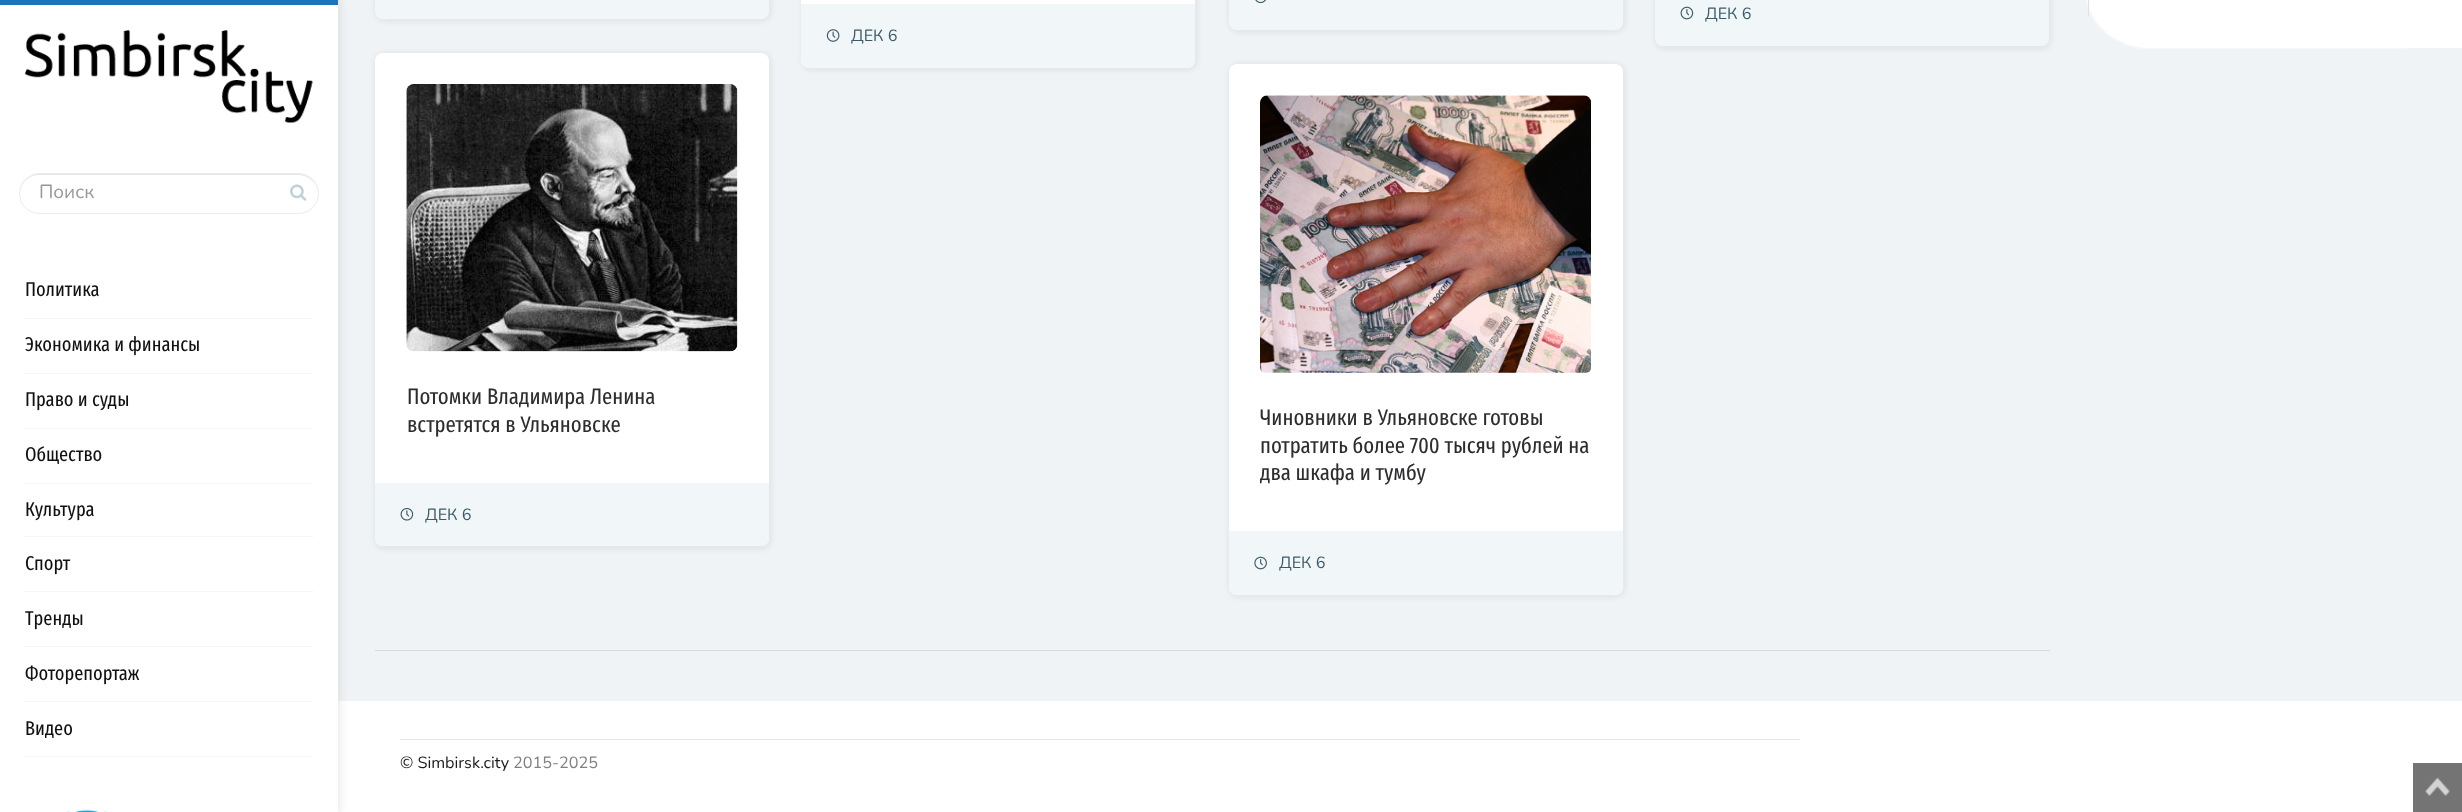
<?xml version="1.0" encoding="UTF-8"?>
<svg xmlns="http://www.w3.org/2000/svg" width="2462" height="812">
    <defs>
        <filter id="blur1" x="-50%" y="-200%" width="200%" height="500%"><feGaussianBlur stdDeviation="5"/></filter>
        <filter id="blur2" x="-50%" y="-200%" width="200%" height="500%"><feGaussianBlur stdDeviation="1"/></filter>
        <filter id="blur3" x="-50%" y="-200%" width="200%" height="500%"><feGaussianBlur stdDeviation="3"/></filter>
    </defs>
    <rect width="100%" height="100%" fill="#F0F3F5"/>
    <rect x="338" y="701" width="2124" height="111" fill="#FFFFFF"/>
    <rect x="-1" y="-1" width="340" height="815" fill="#000000" fill-opacity="0.1" filter="url(#blur1)"/>
    <rect x="0" y="5" width="338" height="807" fill="#FFFFFF"/>
    <rect x="0" y="0" width="338" height="5" fill="#1E73BE"/>
    <image x="25" y="30" width="288" height="93" href="img_01.png"/>
    <path d="M 39 175 H 298 C 309 175 318 184 318 194 C 318 183 309 174 298 174 H 40 C 29 174 20 183 20 194 C 20 184 29 175 39 175 Z" fill="#E6E6E6"/>
    <rect x="19.5" y="173.5" width="299" height="40" rx="20" fill="none" stroke="#EBEBEB"/>
    <text x="39" y="198" font-family="Nunito" font-size="19" fill="#999999">Поиск</text>
    <image x="290" y="184" width="17" height="17" href="img_02.png"/>
    <rect x="25" y="318" width="288" height="1" fill="#F5F5F5"/>
    <text x="25" y="296" font-family="Fira Sans Extra Condensed" font-size="20" fill="#111111">Политика</text>
    <rect x="25" y="373" width="288" height="1" fill="#F5F5F5"/>
    <text x="25" y="351" font-family="Fira Sans Extra Condensed" font-size="20" fill="#111111">Экономика и финансы</text>
    <rect x="25" y="428" width="288" height="1" fill="#F5F5F5"/>
    <text x="25" y="406" font-family="Fira Sans Extra Condensed" font-size="20" fill="#111111">Право и суды</text>
    <rect x="25" y="483" width="288" height="1" fill="#F5F5F5"/>
    <text x="25" y="461" font-family="Fira Sans Extra Condensed" font-size="20" fill="#111111">Общество</text>
    <rect x="25" y="536" width="288" height="1" fill="#F5F5F5"/>
    <text x="25" y="516" font-family="Fira Sans Extra Condensed" font-size="20" fill="#111111">Культура</text>
    <rect x="25" y="591" width="288" height="1" fill="#F5F5F5"/>
    <text x="25" y="570" font-family="Fira Sans Extra Condensed" font-size="20" fill="#111111">Спорт</text>
    <rect x="25" y="646" width="288" height="1" fill="#F5F5F5"/>
    <text x="25" y="625" font-family="Fira Sans Extra Condensed" font-size="20" fill="#111111">Тренды</text>
    <rect x="25" y="701" width="288" height="1" fill="#F5F5F5"/>
    <text x="25" y="680" font-family="Fira Sans Extra Condensed" font-size="20" fill="#111111">Фоторепортаж</text>
    <rect x="25" y="756" width="288" height="1" fill="#F5F5F5"/>
    <text x="25" y="735" font-family="Fira Sans Extra Condensed" font-size="20" fill="#111111">Видео</text>
    <image x="67" y="809" width="40" height="3" href="img_03.png"/>
    <rect x="2086" y="-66" width="375" height="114" rx="63" fill="#FFFFFF" filter="url(#blur2)"/>
    <path d="M 2088 -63 H 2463 V 48 H 2151 C 2116 48 2088 20 2088 -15 Z" fill="#FFFFFF"/>
    <rect x="2088" y="0" width="1" height="16" fill="#E1E1E1"/>
    <rect x="376" y="-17" width="394" height="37" rx="8" fill="#323232" fill-opacity="0.1" filter="url(#blur3)"/>
    <path d="M 375 -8 H 769 V 11 C 769 15.5 765.5 19 761 19 H 383 C 378.5 19 375 15.5 375 11 Z" fill="#F1F6F8"/>
    <rect x="1230" y="-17" width="394" height="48" rx="8" fill="#323232" fill-opacity="0.1" filter="url(#blur3)"/>
    <path d="M 1229 -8 H 1623 V 22 C 1623 26.5 1619.5 30 1615 30 H 1237 C 1232.5 30 1229 26.5 1229 22 Z" fill="#F1F6F8"/>
    <image x="1255" y="0" width="11" height="4" href="img_04.png"/>
    <rect x="1656" y="-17" width="394" height="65" rx="8" fill="#323232" fill-opacity="0.1" filter="url(#blur3)"/>
    <path d="M 1655 -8 H 2049 V 38 C 2049 42.5 2045.5 46 2041 46 H 1663 C 1658.5 46 1655 42.5 1655 38 Z" fill="#F1F6F8"/>
    <image x="1680" y="6" width="14" height="14" href="img_05.png"/>
    <text x="1705" y="19" font-family="Nunito" font-size="16.25" fill="#3C5B68">ДЕК 6</text>
    <rect x="803" y="-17" width="393" height="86" rx="8" fill="#323232" fill-opacity="0.1" filter="url(#blur3)"/>
    <rect x="801" y="-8" width="394" height="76" rx="8" fill="#FFFFFF"/>
    <path d="M 801 4 H 1195 V 60 C 1195 64.5 1191.5 68 1187 68 H 809 C 804.5 68 801 64.5 801 60 Z" fill="#F1F6F8"/>
    <image x="826" y="29" width="14" height="13" href="img_06.png"/>
    <text x="851" y="41" font-family="Nunito" font-size="16.25" fill="#3C5B68">ДЕК 6</text>
    <rect x="376" y="54" width="394" height="494" rx="8" fill="#323232" fill-opacity="0.1" filter="url(#blur3)"/>
    <rect x="375" y="53" width="394" height="493" rx="8" fill="#FFFFFF"/>
    <image x="406" y="84" width="332" height="268" href="img_07.png"/>
    <text font-family="Fira Sans Extra Condensed" font-size="22.5" fill="#2C2D2F">
        <tspan x="407" y="404">Потомки Владимира Ленина</tspan>
        <tspan x="407" y="432">встретятся в Ульяновске</tspan>
    </text>
    <path d="M 375 483 H 769 V 538 C 769 542.5 765.5 546 761 546 H 383 C 378.5 546 375 542.5 375 538 Z" fill="#F1F6F8"/>
    <image x="400" y="508" width="14" height="13" href="img_08.png"/>
    <text x="425" y="520" font-family="Nunito" font-size="16.25" fill="#3C5B68">ДЕК 6</text>
    <rect x="1230" y="65" width="394" height="531" rx="8" fill="#323232" fill-opacity="0.1" filter="url(#blur3)"/>
    <rect x="1229" y="64" width="394" height="531" rx="8" fill="#FFFFFF"/>
    <image x="1260" y="95" width="331" height="278" href="img_09.png"/>
    <text font-family="Fira Sans Extra Condensed" font-size="22.5" fill="#2C2D2F">
        <tspan x="1260" y="425">Чиновники в Ульяновске готовы</tspan>
        <tspan x="1260" y="453">потратить более 700 тысяч рублей на</tspan>
        <tspan x="1260" y="480">два шкафа и тумбу</tspan>
    </text>
    <path d="M 1229 531 H 1623 V 587 C 1623 591.5 1619.5 595 1615 595 H 1237 C 1232.5 595 1229 591.5 1229 587 Z" fill="#F1F6F8"/>
    <image x="1254" y="556" width="13" height="14" href="img_10.png"/>
    <text x="1279" y="568" font-family="Nunito" font-size="16.25" fill="#3C5B68">ДЕК 6</text>
    <rect x="375" y="650" width="1675" height="1" fill="#D1DBE1"/>
    <rect x="400" y="739" width="1400" height="1" fill="#E6E6E6"/>
    <text x="400" y="768" font-family="Nunito" font-size="16.25" fill="#1A1A1A">© Simbirsk.city</text>
    <text x="513" y="768" font-family="Nunito" font-size="16.25" fill="#808080">2015-2025</text>
    <rect x="2413" y="763" width="49" height="49" fill="#747474"/>
    <image x="2425" y="777" width="25" height="19" href="img_11.png"/>
</svg>
